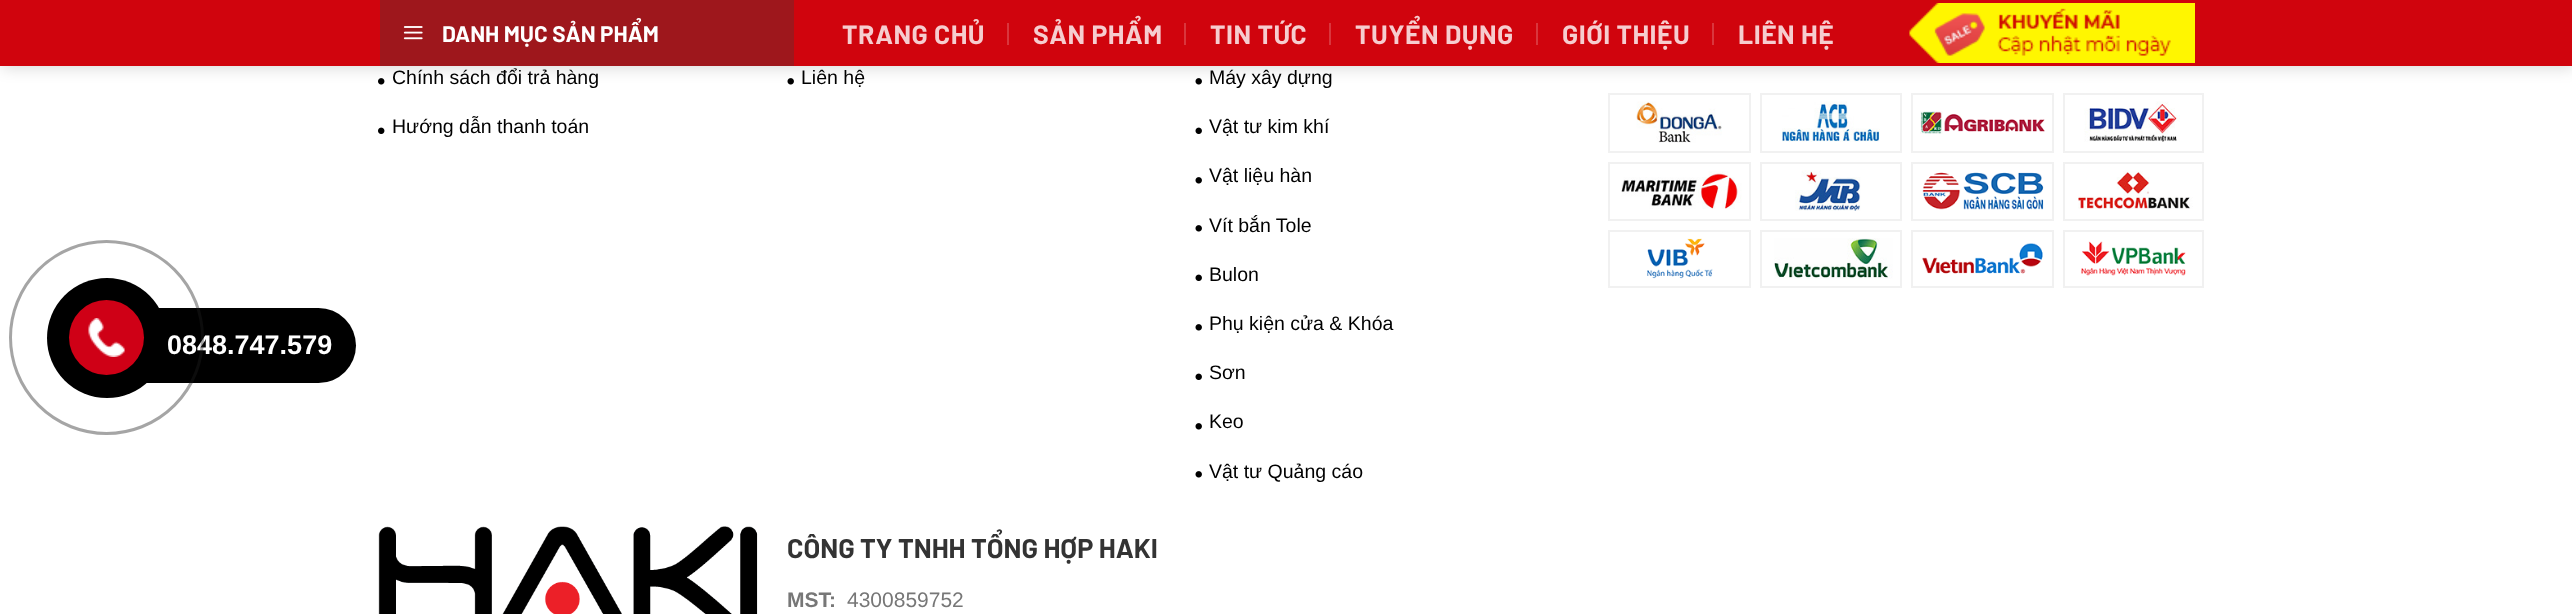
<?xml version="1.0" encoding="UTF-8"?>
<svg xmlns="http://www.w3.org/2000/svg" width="2572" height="614">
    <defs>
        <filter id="blur1" x="-50%" y="-200%" width="200%" height="500%"><feGaussianBlur stdDeviation="7.5"/></filter>
    </defs>
    <rect width="100%" height="100%" fill="#FFFFFF"/>
    <rect x="77" y="308" width="279" height="75" rx="37.5" fill="#000000"/>
    <text x="167" y="354" font-family="Liberation Sans" font-size="27" font-weight="700" fill="#FFFFFF">0848.747.579</text>
    <circle cx="106.5" cy="337.5" r="96" fill="none" stroke="#1E1E1E" stroke-opacity="0.4" stroke-width="3"/>
    <circle cx="107" cy="338" r="60" fill="#000000"/>
    <circle cx="106.5" cy="337.5" r="37.5" fill="#CF0016"/>
    <image x="88" y="318" width="37" height="39" href="img_01.png"/>
    <image x="378" y="78" width="7" height="7" href="img_04.png"/>
    <image x="787" y="78" width="7" height="7" href="img_06.png"/>
    <image x="1195" y="78" width="7" height="7" href="img_06.png"/>
    <rect x="2" y="2" width="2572" height="66" fill="#000000" fill-opacity="0.15" filter="url(#blur1)"/>
    <rect x="0" y="0" width="2572" height="66" fill="#D0040D"/>
    <rect x="380" y="0" width="414" height="66" fill="#9E171C"/>
    <image x="403" y="26" width="20" height="14" href="img_02.png"/>
    <text x="442" y="42" font-family="Barlow" font-size="22.5" font-weight="700" fill="#FFFFFF">DANH MỤC SẢN PHẨM</text>
    <text x="842" y="44" font-family="Barlow" font-size="26.5" font-weight="700" letter-spacing="0.5" fill="#F6CDCF">TRANG CHỦ</text>
    <rect x="1007" y="23" width="2" height="22" fill="#D9363D"/>
    <text x="1033" y="44" font-family="Barlow" font-size="26.5" font-weight="700" letter-spacing="0.5" fill="#F6CDCF">SẢN PHẨM</text>
    <rect x="1184" y="23" width="2" height="22" fill="#D9363D"/>
    <text x="1210" y="44" font-family="Barlow" font-size="26.5" font-weight="700" letter-spacing="0.5" fill="#F6CDCF">TIN TỨC</text>
    <rect x="1329" y="23" width="2" height="22" fill="#D9363D"/>
    <text x="1355" y="44" font-family="Barlow" font-size="26.5" font-weight="700" letter-spacing="0.5" fill="#F6CDCF">TUYỂN DỤNG</text>
    <rect x="1536" y="23" width="2" height="22" fill="#D9363D"/>
    <text x="1562" y="44" font-family="Barlow" font-size="26.5" font-weight="700" letter-spacing="0.5" fill="#F6CDCF">GIỚI THIỆU</text>
    <rect x="1712" y="23" width="2" height="22" fill="#D9363D"/>
    <text x="1738" y="44" font-family="Barlow" font-size="26.5" font-weight="700" letter-spacing="0.5" fill="#F6CDCF">LIÊN HỆ</text>
    <image x="1909" y="3" width="286" height="60" href="img_03.png"/>
    <text x="392" y="84" font-family="Liberation Sans" font-size="19.5" fill="#000000">Chính sách đổi trả hàng</text>
    <image x="378" y="127" width="7" height="7" href="img_05.png"/>
    <text x="392" y="133" font-family="Liberation Sans" font-size="19.5" fill="#000000">Hướng dẫn thanh toán</text>
    <text x="801" y="84" font-family="Liberation Sans" font-size="19.5" fill="#000000">Liên hệ</text>
    <text x="1209" y="84" font-family="Liberation Sans" font-size="19.5" fill="#000000">Máy xây dựng</text>
    <image x="1195" y="127" width="7" height="7" href="img_07.png"/>
    <text x="1209" y="133" font-family="Liberation Sans" font-size="19.5" fill="#000000">Vật tư kim khí</text>
    <image x="1195" y="177" width="7" height="7" href="img_06.png"/>
    <text x="1209" y="182" font-family="Liberation Sans" font-size="19.5" fill="#000000">Vật liệu hàn</text>
    <image x="1195" y="225" width="7" height="7" href="img_06.png"/>
    <text x="1209" y="232" font-family="Liberation Sans" font-size="19.5" fill="#000000">Vít bắn Tole</text>
    <image x="1195" y="274" width="7" height="7" href="img_07.png"/>
    <text x="1209" y="281" font-family="Liberation Sans" font-size="19.5" fill="#000000">Bulon</text>
    <image x="1195" y="324" width="7" height="7" href="img_06.png"/>
    <text x="1209" y="330" font-family="Liberation Sans" font-size="19.5" fill="#000000">Phụ kiện cửa &amp; Khóa</text>
    <image x="1195" y="373" width="7" height="7" href="img_07.png"/>
    <text x="1209" y="379" font-family="Liberation Sans" font-size="19.5" fill="#000000">Sơn</text>
    <image x="1195" y="423" width="7" height="7" href="img_06.png"/>
    <text x="1209" y="428" font-family="Liberation Sans" font-size="19.5" fill="#000000">Keo</text>
    <image x="1195" y="471" width="7" height="7" href="img_06.png"/>
    <text x="1209" y="478" font-family="Liberation Sans" font-size="19.5" fill="#000000">Vật tư Quảng cáo</text>
    <image x="378" y="526" width="380" height="88" href="img_08.png"/>
    <text x="787" y="558" font-family="Barlow" font-size="27" font-weight="700" fill="#333333">CÔNG TY TNHH TỔNG HỢP HAKI</text>
    <text x="787" y="607" font-family="Liberation Sans" font-size="21" font-weight="700" fill="#777777">MST:</text>
    <text x="847" y="607" font-family="Liberation Sans" font-size="21" fill="#777777">4300859752</text>
    <rect x="1609" y="94" width="141" height="58" fill="none" stroke="#F1F1F1" stroke-width="2"/>
    <image x="1636" y="101" width="86" height="42" href="img_09.png"/>
    <rect x="1761" y="94" width="140" height="58" fill="none" stroke="#F1F1F1" stroke-width="2"/>
    <image x="1782" y="101" width="98" height="41" href="img_10.png"/>
    <rect x="1912" y="94" width="141" height="58" fill="none" stroke="#F1F1F1" stroke-width="2"/>
    <image x="1920" y="111" width="125" height="23" href="img_11.png"/>
    <rect x="2064" y="94" width="139" height="58" fill="none" stroke="#F1F1F1" stroke-width="2"/>
    <image x="2084" y="101" width="96" height="41" href="img_12.png"/>
    <rect x="1609" y="163" width="141" height="57" fill="none" stroke="#F1F1F1" stroke-width="2"/>
    <image x="1621" y="171" width="121" height="38" href="img_13.png"/>
    <rect x="1761" y="163" width="140" height="57" fill="none" stroke="#F1F1F1" stroke-width="2"/>
    <image x="1795" y="170" width="66" height="41" href="img_14.png"/>
    <rect x="1912" y="163" width="141" height="57" fill="none" stroke="#F1F1F1" stroke-width="2"/>
    <image x="1922" y="172" width="122" height="38" href="img_15.png"/>
    <rect x="2064" y="163" width="139" height="57" fill="none" stroke="#F1F1F1" stroke-width="2"/>
    <image x="2078" y="170" width="115" height="39" href="img_16.png"/>
    <rect x="1609" y="231" width="141" height="56" fill="none" stroke="#F1F1F1" stroke-width="2"/>
    <image x="1647" y="238" width="66" height="41" href="img_17.png"/>
    <rect x="1761" y="231" width="140" height="56" fill="none" stroke="#F1F1F1" stroke-width="2"/>
    <image x="1774" y="238" width="119" height="41" href="img_18.png"/>
    <rect x="1912" y="231" width="141" height="56" fill="none" stroke="#F1F1F1" stroke-width="2"/>
    <image x="1922" y="243" width="121" height="31" href="img_19.png"/>
    <rect x="2064" y="231" width="139" height="56" fill="none" stroke="#F1F1F1" stroke-width="2"/>
    <image x="2081" y="241" width="105" height="35" href="img_20.png"/>
</svg>
